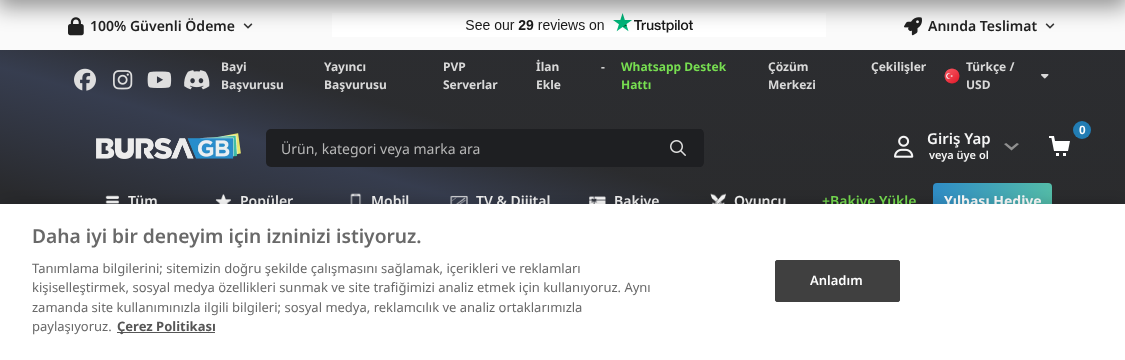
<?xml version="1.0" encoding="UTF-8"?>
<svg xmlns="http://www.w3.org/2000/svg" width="1125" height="360">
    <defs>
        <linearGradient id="g1" gradientUnits="userSpaceOnUse" x1="562" y1="0" x2="563" y2="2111"><stop offset="0" stop-color="#2F3441"/><stop offset="0.22" stop-color="#222222"/><stop offset="1" stop-color="#222326"/></linearGradient>
        <filter id="blur1" x="-50%" y="-200%" width="200%" height="500%"><feGaussianBlur stdDeviation="10.5"/></filter>
        <linearGradient id="g2" gradientUnits="userSpaceOnUse" x1="492" y1="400" x2="633" y2="-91"><stop offset="0.13" stop-color="#292A2D"/><stop offset="0.36" stop-color="#383F52" stop-opacity="0.88"/><stop offset="0.5" stop-color="#2B2B2B" stop-opacity="0.72"/></linearGradient>
        <linearGradient id="g3" gradientUnits="userSpaceOnUse" x1="933" y1="221" x2="1052" y2="221"><stop offset="0" stop-color="#2F8DC7"/><stop offset="1" stop-color="#54BDA9"/></linearGradient>
        <filter id="blur2" x="-50%" y="-200%" width="200%" height="500%"><feGaussianBlur stdDeviation="9"/></filter>
    </defs>
    <rect width="100%" height="100%" fill="#FFFFFF"/>
    <rect x="0" y="50" width="1125" height="154" fill="url(#g1)"/>
    <rect x="0" y="0" width="1125" height="50" fill="#FAFAFA"/>
    <image x="68" y="17" width="16" height="19" href="img_01.png"/>
    <image x="243" y="23" width="10" height="6" href="img_02.png"/>
    <image x="332" y="13" width="494" height="24" href="img_03.png"/>
    <image x="904" y="17" width="18" height="19" href="img_04.png"/>
    <image x="1045" y="23" width="10" height="6" href="img_02.png"/>
    <rect x="-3" y="-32" width="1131" height="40" fill="#050505" fill-opacity="0.4" filter="url(#blur1)"/>
    <text x="90" y="31" font-family="Noto Sans" font-size="14" font-weight="600" fill="#212121">100% Güvenli Ödeme</text>
    <text x="928" y="31" font-family="Noto Sans" font-size="14" font-weight="600" fill="#212121">Anında Teslimat</text>
    <rect x="0" y="50" width="1125" height="154" fill="url(#g2)"/>
    <image x="74" y="68" width="22" height="23" href="img_05.png"/>
    <image x="113" y="70" width="20" height="20" href="img_06.png"/>
    <image x="147" y="71" width="25" height="17" href="img_07.png"/>
    <image x="184" y="70" width="26" height="20" href="img_08.png"/>
    <text font-family="Noto Sans" font-size="12" font-weight="700" fill="#D9D9D9">
        <tspan x="221" y="71">Bayi</tspan>
        <tspan x="221" y="89">Başvurusu</tspan>
    </text>
    <text font-family="Noto Sans" font-size="12" font-weight="700" fill="#D9D9D9">
        <tspan x="324" y="71">Yayıncı</tspan>
        <tspan x="324" y="89">Başvurusu</tspan>
    </text>
    <text font-family="Noto Sans" font-size="12" font-weight="700" fill="#D9D9D9">
        <tspan x="443" y="71">PVP</tspan>
        <tspan x="443" y="89">Serverlar</tspan>
    </text>
    <text font-family="Noto Sans" font-size="12" font-weight="700" fill="#D9D9D9">
        <tspan x="536" y="71">İlan</tspan>
        <tspan x="536" y="89">Ekle</tspan>
    </text>
    <text x="601" y="71" font-family="Noto Sans" font-size="12" font-weight="700" fill="#D9D9D9">-</text>
    <text font-family="Noto Sans" font-size="12" font-weight="700" fill="#77DE51">
        <tspan x="621" y="71">Whatsapp Destek</tspan>
        <tspan x="621" y="89">Hattı</tspan>
    </text>
    <text font-family="Noto Sans" font-size="12" font-weight="700" fill="#D9D9D9">
        <tspan x="768" y="71">Çözüm</tspan>
        <tspan x="768" y="89">Merkezi</tspan>
    </text>
    <text x="871" y="71" font-family="Noto Sans" font-size="12" font-weight="700" fill="#D9D9D9">Çekilişler</text>
    <image x="944" y="68" width="16" height="16" href="img_09.png"/>
    <text x="966" y="71" font-family="Noto Sans" font-size="12" font-weight="700" fill="#D9D9D9">Türkçe /</text>
    <image x="1041" y="74" width="8" height="5" href="img_10.png"/>
    <text x="966" y="89" font-family="Noto Sans" font-size="12" font-weight="700" fill="#D9D9D9">USD</text>
    <image x="96" y="133" width="145" height="26" href="img_11.png"/>
    <rect x="266" y="129" width="438" height="38" rx="5" fill="#1E1F22"/>
    <text x="281" y="154" font-family="Noto Sans" font-size="14" fill="#B7B7B7">Ürün, kategori veya marka ara</text>
    <path d="M 653 129 H 700 C 701.5 129 703 130.5 703 132 V 164 C 703 165.5 701.5 167 700 167 H 653 Z" fill="#1E1F22"/>
    <image x="670" y="140" width="16" height="16" href="img_12.png"/>
    <circle cx="1082" cy="130" r="9" fill="#227DB4"/>
    <text x="1079" y="134" font-family="Liberation Sans" font-size="12" font-weight="700" fill="#FFFFFF">0</text>
    <image x="1049" y="136" width="21" height="20" href="img_13.png"/>
    <image x="894" y="135" width="20" height="23" href="img_14.png"/>
    <text x="927" y="144" font-family="Noto Sans" font-size="15" font-weight="600" fill="#F5F5F5">Giriş Yap</text>
    <image x="1004" y="143" width="15" height="8" href="img_15.png"/>
    <text x="929" y="159" font-family="Noto Sans" font-size="11" font-weight="600" fill="#F5F5F5">veya üye ol</text>
    <image x="105" y="195" width="14" height="9" href="img_16.png"/>
    <text x="128" y="206" font-family="Noto Sans" font-size="14" font-weight="600" fill="#F5F5F5">Tüm</text>
    <image x="215" y="194" width="16" height="10" href="img_17.png"/>
    <text x="240" y="206" font-family="Noto Sans" font-size="14" font-weight="600" fill="#F5F5F5">Popüler</text>
    <image x="350" y="193" width="12" height="11" href="img_18.png"/>
    <text x="371" y="206" font-family="Noto Sans" font-size="14" font-weight="600" fill="#F5F5F5">Mobil</text>
    <image x="450" y="195" width="18" height="9" href="img_19.png"/>
    <text x="476" y="206" font-family="Noto Sans" font-size="14" font-weight="600" fill="#F5F5F5">TV &amp; Dijital</text>
    <image x="589" y="196" width="17" height="8" href="img_20.png"/>
    <text x="614" y="206" font-family="Noto Sans" font-size="14" font-weight="600" fill="#F5F5F5">Bakiye</text>
    <image x="710" y="193" width="16" height="11" href="img_21.png"/>
    <text x="734" y="206" font-family="Noto Sans" font-size="14" font-weight="600" fill="#F5F5F5">Oyuncu</text>
    <text x="822" y="206" font-family="Noto Sans" font-size="14" font-weight="600" fill="#77DE51">+Bakiye Yükle</text>
    <rect x="933" y="183" width="119" height="76" rx="4" fill="url(#g3)"/>
    <text x="944" y="206" font-family="Noto Sans" font-size="14" font-weight="700" fill="#FFFFFF">Yılbaşı Hediye</text>
    <rect x="0" y="204" width="1125" height="156" fill="#000000" fill-opacity="0.2" filter="url(#blur2)"/>
    <rect x="0" y="204" width="1125" height="156" fill="#FFFFFF"/>
    <text x="32" y="243" font-family="Noto Sans" font-size="19.2" font-weight="600" fill="#696969">Daha iyi bir deneyim için izninizi istiyoruz.</text>
    <text font-family="Noto Sans" font-size="13" fill="#696969">
        <tspan x="32" y="273">Tanımlama bilgilerini; sitemizin doğru şekilde çalışmasını sağlamak, içerikleri ve reklamları</tspan>
        <tspan x="32" y="292">kişiselleştirmek, sosyal medya özellikleri sunmak ve site trafiğimizi analiz etmek için kullanıyoruz. Aynı</tspan>
        <tspan x="32" y="312">zamanda site kullanımınızla ilgili bilgileri; sosyal medya, reklamcılık ve analiz ortaklarımızla</tspan>
        <tspan x="32" y="331">paylaşıyoruz.</tspan>
    </text>
    <rect x="117" y="332" width="98" height="1" fill="#565656"/>
    <text x="117" y="331" font-family="Noto Sans" font-size="13" font-weight="700" fill="#565656">Çerez Politikası</text>
    <rect x="775.5" y="260.5" width="124" height="41" rx="1.5" fill="#404040" stroke="#404040"/>
    <text x="810" y="285" font-family="Noto Sans" font-size="13" font-weight="600" fill="#FFFFFF">Anladım</text>
</svg>
